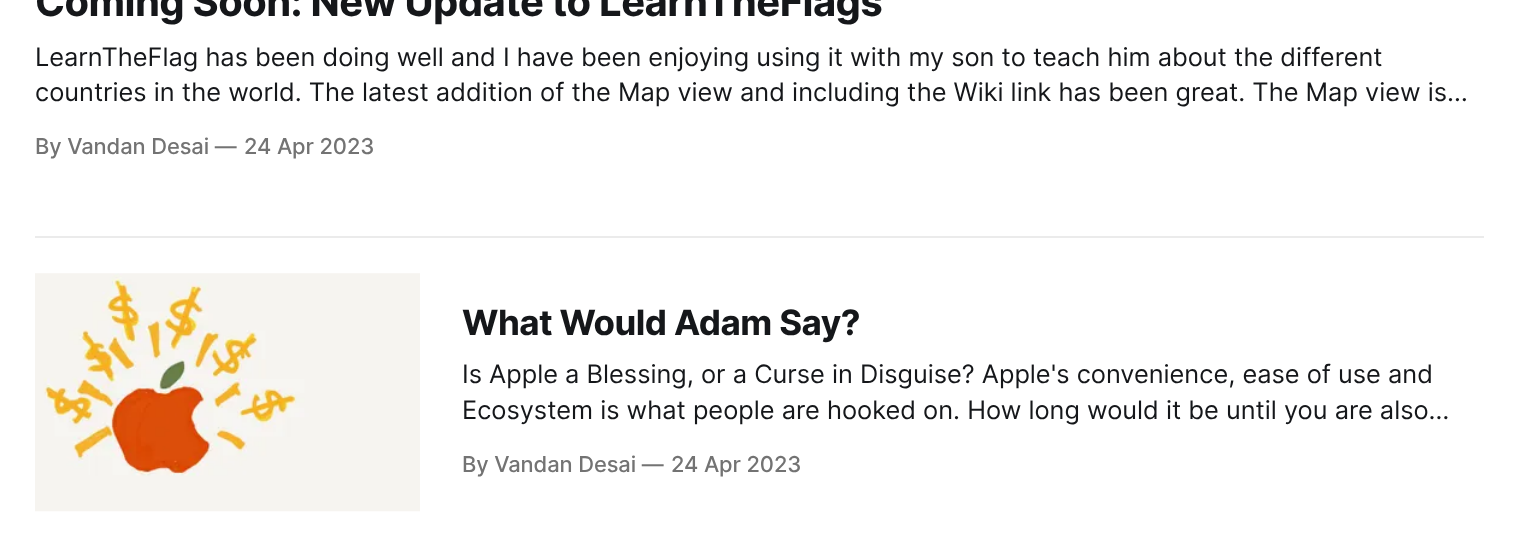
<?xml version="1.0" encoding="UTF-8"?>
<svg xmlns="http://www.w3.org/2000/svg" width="1518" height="535">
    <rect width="100%" height="100%" fill="#FFFFFF"/>
    <text x="35" y="16" font-family="Inter" font-size="39.9" font-weight="700" letter-spacing="-0.55" fill="#15171A">Coming Soon: New Update to LearnTheFlags</text>
    <text font-family="Inter" font-size="25.38" fill="#15171A">
        <tspan x="35" y="66">LearnTheFlag has been doing well and I have been enjoying using it with my son to teach him about the different</tspan>
        <tspan x="35" y="101">countries in the world. The latest addition of the Map view and including the Wiki link has been great. The Map view is…</tspan>
    </text>
    <text x="35" y="154" font-family="Inter" font-size="21.9" font-weight="500" letter-spacing="-0.1" fill="#737373">By Vandan Desai —</text>
    <text x="244" y="154" font-family="Inter" font-size="21.9" font-weight="500" letter-spacing="-0.1" fill="#737373">24 Apr 2023</text>
    <rect x="35" y="236" width="1449" height="2" fill="#EBEBEB"/>
    <image x="35" y="273" width="385" height="239" href="img_01.png"/>
    <text x="462" y="335" font-family="Inter" font-size="34.9" font-weight="700" letter-spacing="-0.5" fill="#15171A">What Would Adam Say?</text>
    <text font-family="Inter" font-size="25.38" fill="#15171A">
        <tspan x="462" y="383">Is Apple a Blessing, or a Curse in Disguise? Apple's convenience, ease of use and</tspan>
        <tspan x="462" y="419">Ecosystem is what people are hooked on. How long would it be until you are also…</tspan>
    </text>
    <text x="462" y="472" font-family="Inter" font-size="21.9" font-weight="500" letter-spacing="-0.1" fill="#737373">By Vandan Desai —</text>
    <text x="671" y="472" font-family="Inter" font-size="21.9" font-weight="500" letter-spacing="-0.1" fill="#737373">24 Apr 2023</text>
</svg>
